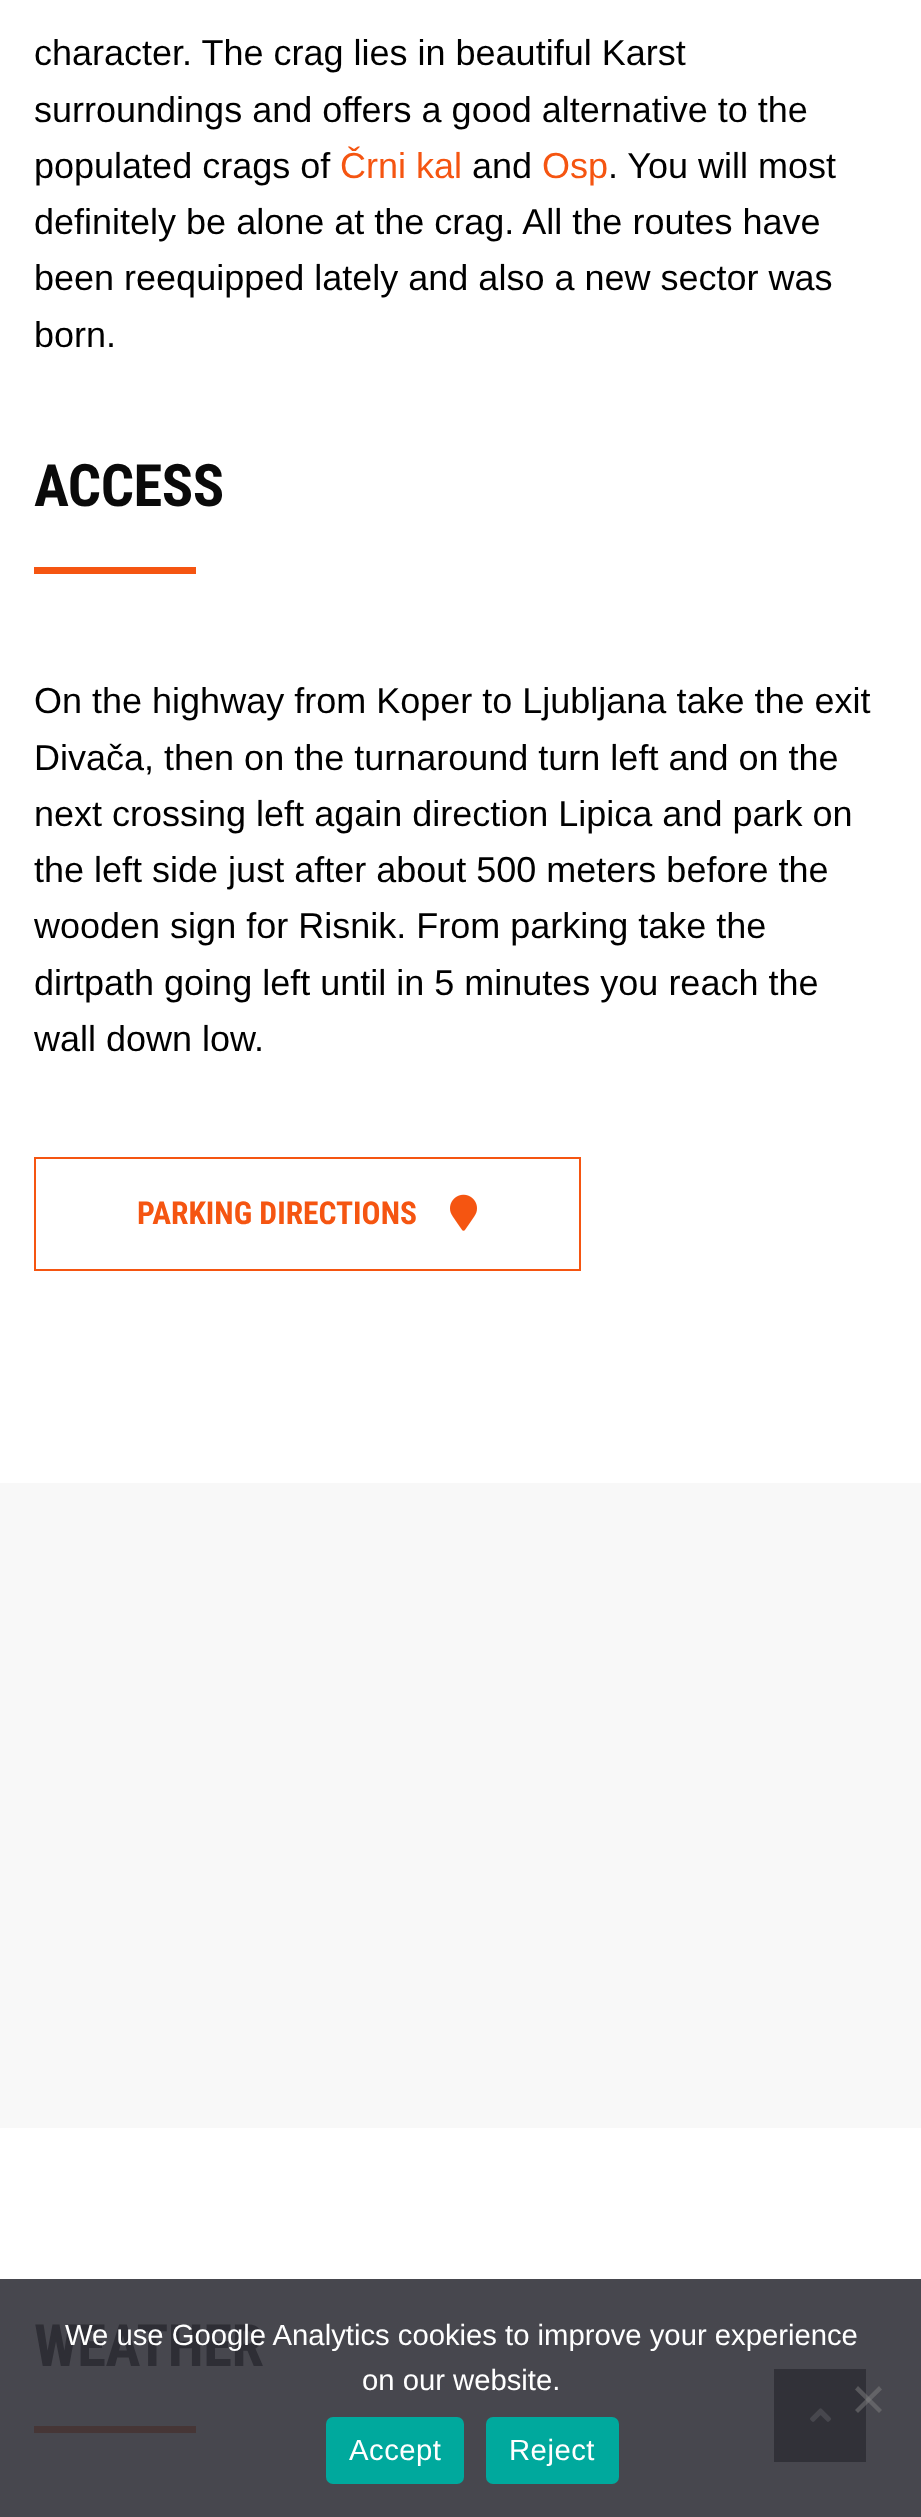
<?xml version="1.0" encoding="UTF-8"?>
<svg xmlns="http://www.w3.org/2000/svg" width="921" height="2517">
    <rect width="100%" height="100%" fill="#FFFFFF"/>
    <rect x="0" y="2279" width="921" height="238" fill="#47474E"/>
    <text font-family="Liberation Sans" font-size="36" fill="#000000">
        <tspan x="34" y="65">character. The crag lies in beautiful Karst</tspan>
        <tspan x="34" y="122">surroundings and offers a good alternative to the</tspan>
        <tspan x="34" y="178">populated crags of</tspan>
    </text>
    <text x="340" y="178" font-family="Liberation Sans" font-size="36" fill="#F55511">Črni kal</text>
    <text x="472" y="178" font-family="Liberation Sans" font-size="36" fill="#000000">and</text>
    <text x="542" y="178" font-family="Liberation Sans" font-size="36" fill="#F55511">Osp</text>
    <text x="608" y="178" font-family="Liberation Sans" font-size="36" fill="#000000">. You will most</text>
    <text font-family="Liberation Sans" font-size="36" fill="#000000">
        <tspan x="34" y="234">definitely be alone at the crag. All the routes have</tspan>
        <tspan x="34" y="290">been reequipped lately and also a new sector was</tspan>
        <tspan x="34" y="347">born.</tspan>
    </text>
    <text x="34" y="506" font-family="Roboto Condensed" font-size="58.5" font-weight="700" letter-spacing="-0.5" fill="#0A0A0A">ACCESS</text>
    <rect x="34" y="567" width="162" height="7" fill="#F55511"/>
    <text font-family="Liberation Sans" font-size="36" fill="#000000">
        <tspan x="34" y="713">On the highway from Koper to Ljubljana take the exit</tspan>
        <tspan x="34" y="770">Divača, then on the turnaround turn left and on the</tspan>
        <tspan x="34" y="826">next crossing left again direction Lipica and park on</tspan>
        <tspan x="34" y="882">the left side just after about 500 meters before the</tspan>
        <tspan x="34" y="938">wooden sign for Risnik. From parking take the</tspan>
        <tspan x="34" y="995">dirtpath going left until in 5 minutes you reach the</tspan>
        <tspan x="34" y="1051">wall down low.</tspan>
    </text>
    <rect x="35" y="1158" width="545" height="112" fill="none" stroke="#F55511" stroke-width="2"/>
    <text x="137" y="1224" font-family="Roboto Condensed" font-size="31.5" font-weight="700" fill="#F55511">PARKING DIRECTIONS</text>
    <image x="450" y="1194" width="27" height="37" href="img_01.png"/>
    <rect x="0" y="1483" width="921" height="645" fill="#F8F8F8"/>
    <text x="34" y="2366" font-family="Roboto Condensed" font-size="58.5" font-weight="700" letter-spacing="-0.5" fill="#2E2E35">WEATHER</text>
    <rect x="34" y="2426" width="162" height="7" fill="#463636"/>
    <rect x="774" y="2369" width="92" height="93" fill="#313138"/>
    <image x="810" y="2408" width="22" height="14" href="img_02.png"/>
    <text x="65" y="2345" font-family="Liberation Sans" font-size="29.25" fill="#FFFFFF">We use Google Analytics cookies to improve your experience</text>
    <text x="362" y="2390" font-family="Liberation Sans" font-size="29.25" fill="#FFFFFF">on our website.</text>
    <path d="M 879 2386 L 882 2389.5 L 858 2413 L 855 2410 Z" fill="#808080" fill-opacity="0.5"/>
    <path d="M 855 2389.5 L 858 2386 L 882 2410 L 879 2413 Z" fill="#808080" fill-opacity="0.5"/>
    <rect x="326" y="2417" width="138" height="67" rx="7" fill="#00A99D"/>
    <text x="349" y="2460" font-family="Liberation Sans" font-size="29.25" letter-spacing="0.5" fill="#FFFFFF">Accept</text>
    <rect x="486" y="2417" width="133" height="67" rx="7" fill="#00A99D"/>
    <text x="509" y="2460" font-family="Liberation Sans" font-size="29.25" letter-spacing="0.5" fill="#FFFFFF">Reject</text>
</svg>
